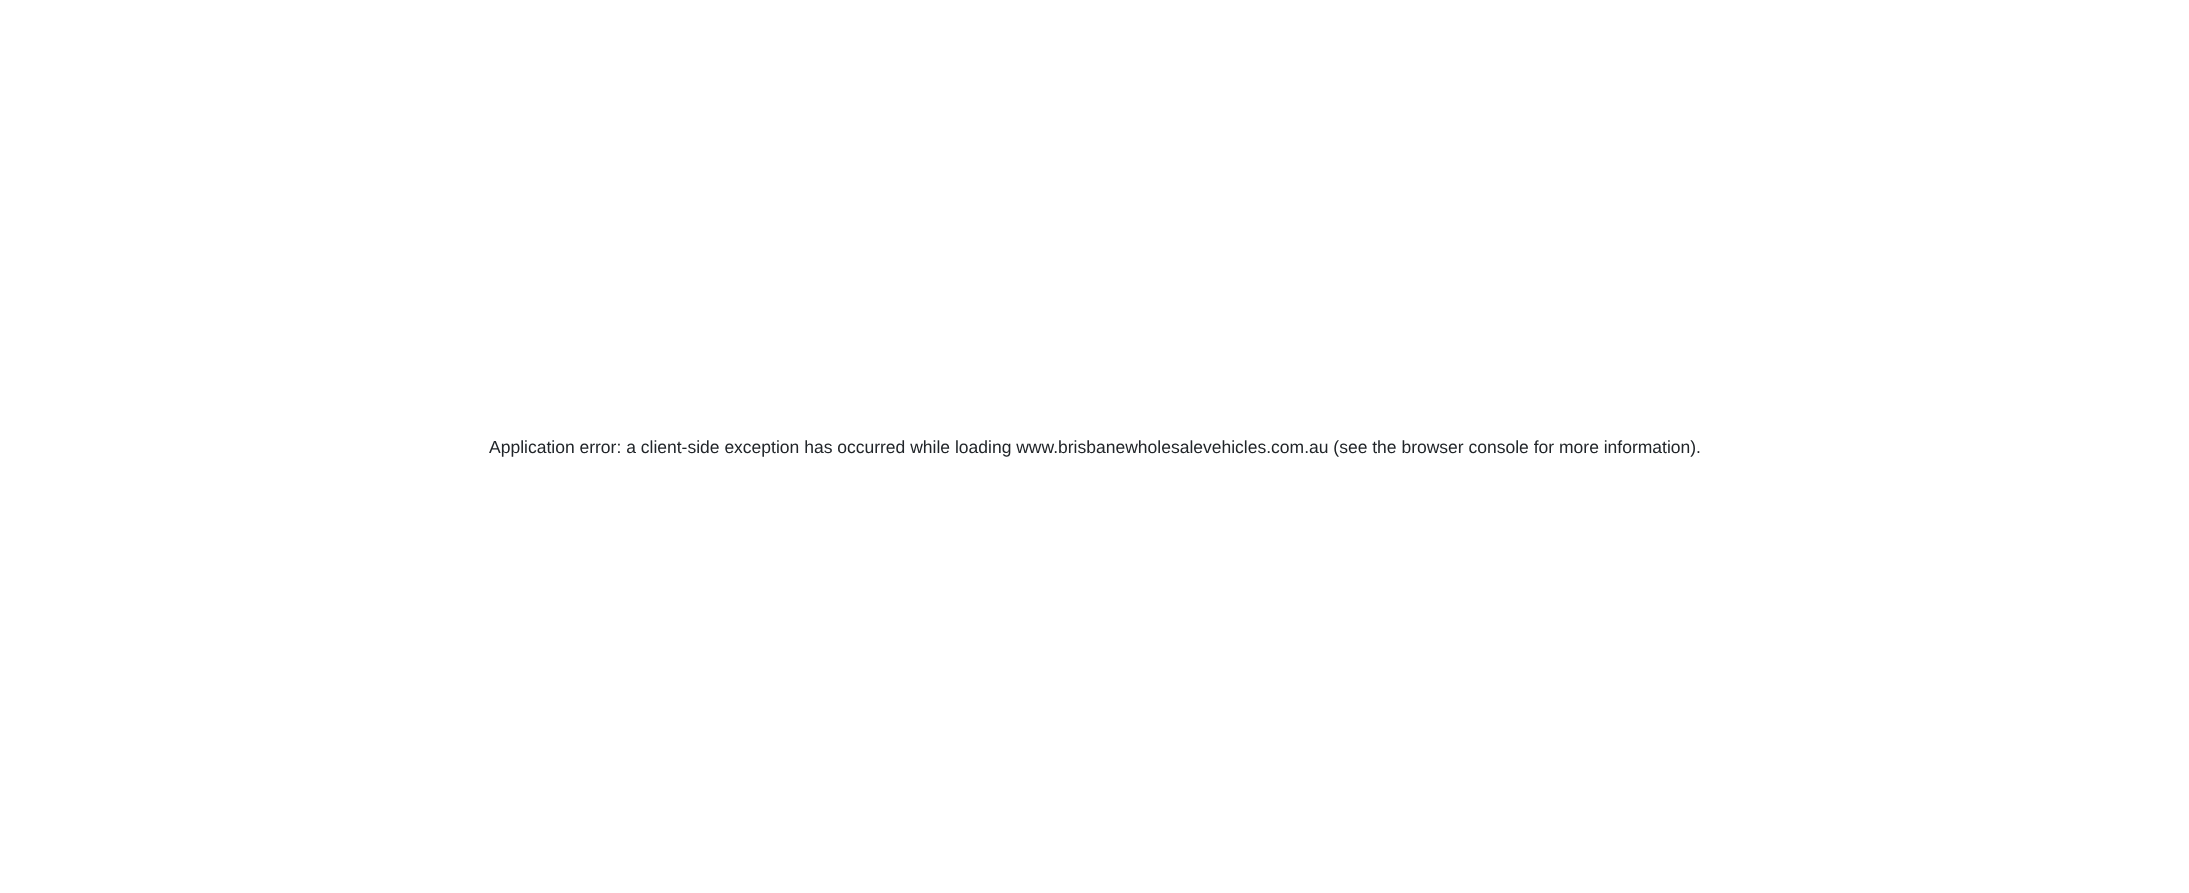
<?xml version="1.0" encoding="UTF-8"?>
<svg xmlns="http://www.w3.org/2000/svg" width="2189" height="893">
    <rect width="100%" height="100%" fill="#FFFFFF"/>
    <text x="489" y="453" font-family="Liberation Sans" font-size="17.5" fill="#212529">Application error: a client-side exception has occurred while loading www.brisbanewholesalevehicles.com.au (see the browser console for more information).</text>
</svg>
